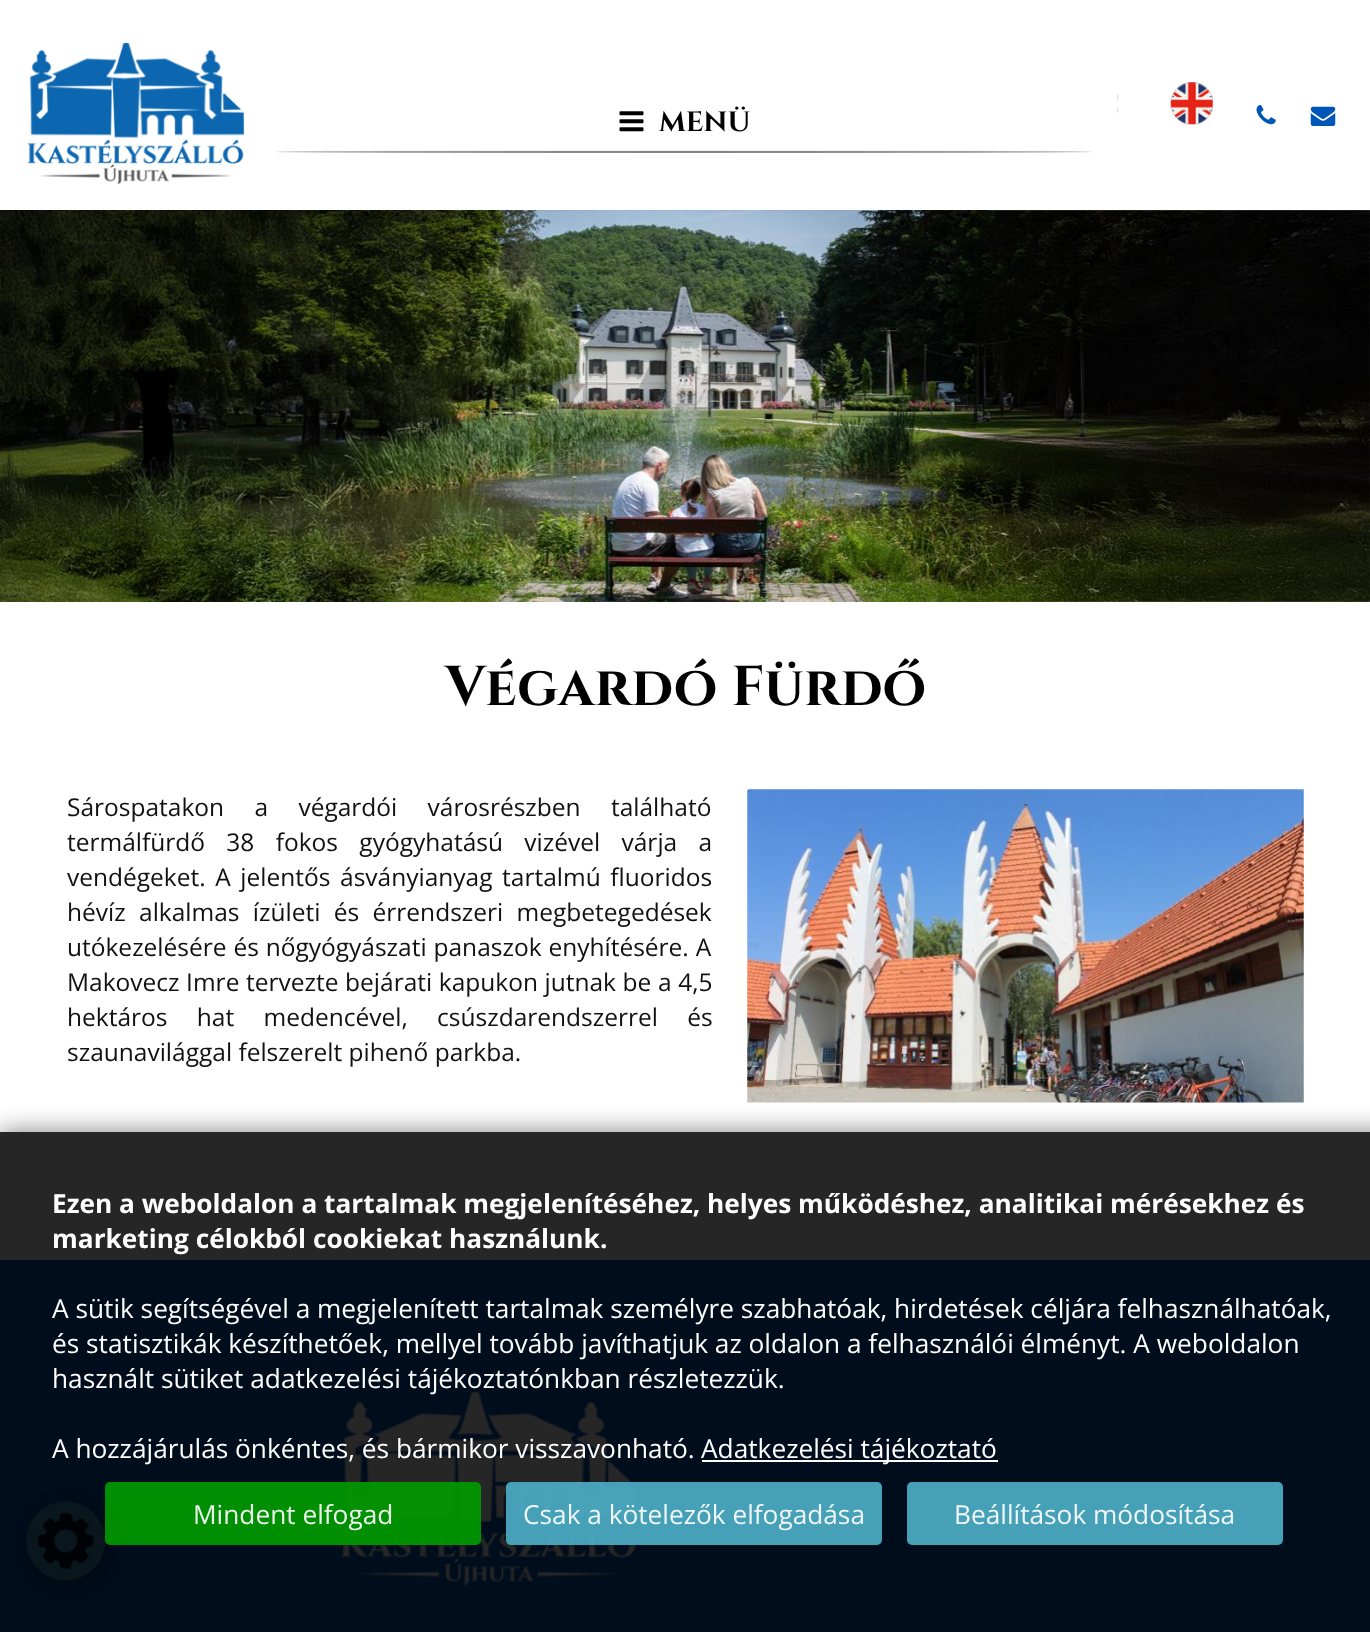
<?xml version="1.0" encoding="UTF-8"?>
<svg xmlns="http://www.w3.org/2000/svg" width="1370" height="1632">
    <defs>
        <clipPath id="clip1"><path d="M 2 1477 H 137 V 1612 H 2 Z M 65 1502 H 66 C 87.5 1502 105 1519.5 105 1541 C 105 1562.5 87.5 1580 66 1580 H 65 C 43.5 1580 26 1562.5 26 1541 C 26 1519.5 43.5 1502 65 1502 Z" clip-rule="evenodd"/></clipPath>
        <filter id="blur1" x="-50%" y="-200%" width="200%" height="500%"><feGaussianBlur stdDeviation="9"/></filter>
        <clipPath id="clip2"><path d="M 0 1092 H 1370 V 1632 H 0 Z M 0 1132 H 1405 V 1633 H 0 Z" clip-rule="evenodd"/></clipPath>
        <filter id="blur2" x="-50%" y="-200%" width="200%" height="500%"><feGaussianBlur stdDeviation="13"/></filter>
    </defs>
    <rect width="100%" height="100%" fill="#FFFFFF"/>
    <image x="27" y="42" width="217" height="142" href="img_01.png"/>
    <image x="619" y="111" width="25" height="21" href="img_02.png"/>
    <text x="659" y="131" font-family="Cinzel" font-size="28" font-weight="700" fill="#000000">MENÜ</text>
    <image x="276" y="150" width="816" height="3" href="img_03.png"/>
    <image x="1117" y="94" width="2" height="20" href="img_04.png"/>
    <image x="1170" y="82" width="43" height="43" href="img_05.png"/>
    <image x="1256" y="105" width="20" height="20" href="img_06.png"/>
    <image x="1310" y="106" width="26" height="20" href="img_07.png"/>
    <image x="0" y="210" width="1370" height="392" href="img_08.png"/>
    <text x="445" y="705" font-family="Cinzel" font-size="56" font-weight="700" fill="#000000">Végardó Fürdő</text>
    <text font-family="Open Sans" font-size="24.5" fill="#111111">
        <tspan x="67" y="816" word-spacing="24">Sárospatakon a végardói városrészben található</tspan>
        <tspan x="67" y="851" word-spacing="15">termálfürdő 38 fokos gyógyhatású vizével várja a</tspan>
        <tspan x="67" y="886" word-spacing="3.25">vendégeket. A jelentős ásványianyag tartalmú fluoridos</tspan>
        <tspan x="67" y="921" word-spacing="7">hévíz alkalmas ízületi és érrendszeri megbetegedések</tspan>
        <tspan x="67" y="956" word-spacing="0.5">utókezelésére és nőgyógyászati panaszok enyhítésére. A</tspan>
        <tspan x="67" y="991" word-spacing="0.25">Makovecz Imre tervezte bejárati kapukon jutnak be a 4,5</tspan>
        <tspan x="67" y="1026" word-spacing="23">hektáros hat medencével, csúszdarendszerrel és</tspan>
        <tspan x="67" y="1061">szaunavilággal felszerelt pihenő parkba.</tspan>
    </text>
    <image x="747" y="789" width="557" height="314" href="img_09.png"/>
    <rect x="0" y="1260" width="1370" height="372" fill="#0056B8"/>
    <image x="340" y="1391" width="297" height="194" href="img_10.png"/>
    <g clip-path="url(#clip1)">
        <rect x="30" y="1505" width="79" height="79" rx="39.5" fill="#001125" fill-opacity="0.5" filter="url(#blur1)"/>
    </g>
    <image x="26" y="1501" width="80" height="80" href="img_11.png"/>
    <g clip-path="url(#clip2)">
        <rect x="0" y="1132" width="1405" height="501" fill="#000000" fill-opacity="0.5" filter="url(#blur2)"/>
    </g>
    <rect x="0" y="1132" width="1370" height="500" fill="#000000" fill-opacity="0.85"/>
    <text font-family="Open Sans" font-size="26.25" font-weight="700" fill="#FFFFFF">
        <tspan x="52" y="1213">Ezen a weboldalon a tartalmak megjelenítéséhez, helyes működéshez, analitikai mérésekhez és</tspan>
        <tspan x="52" y="1248">marketing célokból cookiekat használunk.</tspan>
    </text>
    <text font-family="Open Sans" font-size="26.25" fill="#FFFFFF">
        <tspan x="52" y="1318">A sütik segítségével a megjelenített tartalmak személyre szabhatóak, hirdetések céljára felhasználhatóak,</tspan>
        <tspan x="52" y="1353">és statisztikák készíthetőek, mellyel tovább javíthatjuk az oldalon a felhasználói élményt. A weboldalon</tspan>
        <tspan x="52" y="1388">használt sütiket adatkezelési tájékoztatónkban részletezzük.</tspan>
    </text>
    <text x="52" y="1458" font-family="Open Sans" font-size="26.25" fill="#FFFFFF">A hozzájárulás önkéntes, és bármikor visszavonható.</text>
    <rect x="702" y="1460" width="296" height="2" fill="#FFFFFF"/>
    <text x="701" y="1458" font-family="Open Sans" font-size="26.25" fill="#FFFFFF">Adatkezelési tájékoztató</text>
    <rect x="105" y="1482" width="376" height="63" rx="5" fill="#009900" fill-opacity="0.92"/>
    <text x="193" y="1524" font-family="Open Sans" font-size="26.25" fill="#EBF6EB">Mindent elfogad</text>
    <rect x="506" y="1482" width="376" height="63" rx="5" fill="#4BACC6" fill-opacity="0.92"/>
    <text x="523" y="1524" font-family="Open Sans" font-size="26.25" fill="#F0F7F9">Csak a kötelezők elfogadása</text>
    <rect x="907" y="1482" width="376" height="63" rx="5" fill="#4BACC6" fill-opacity="0.92"/>
    <text x="954" y="1524" font-family="Open Sans" font-size="26.25" fill="#F0F7F9">Beállítások módosítása</text>
</svg>
